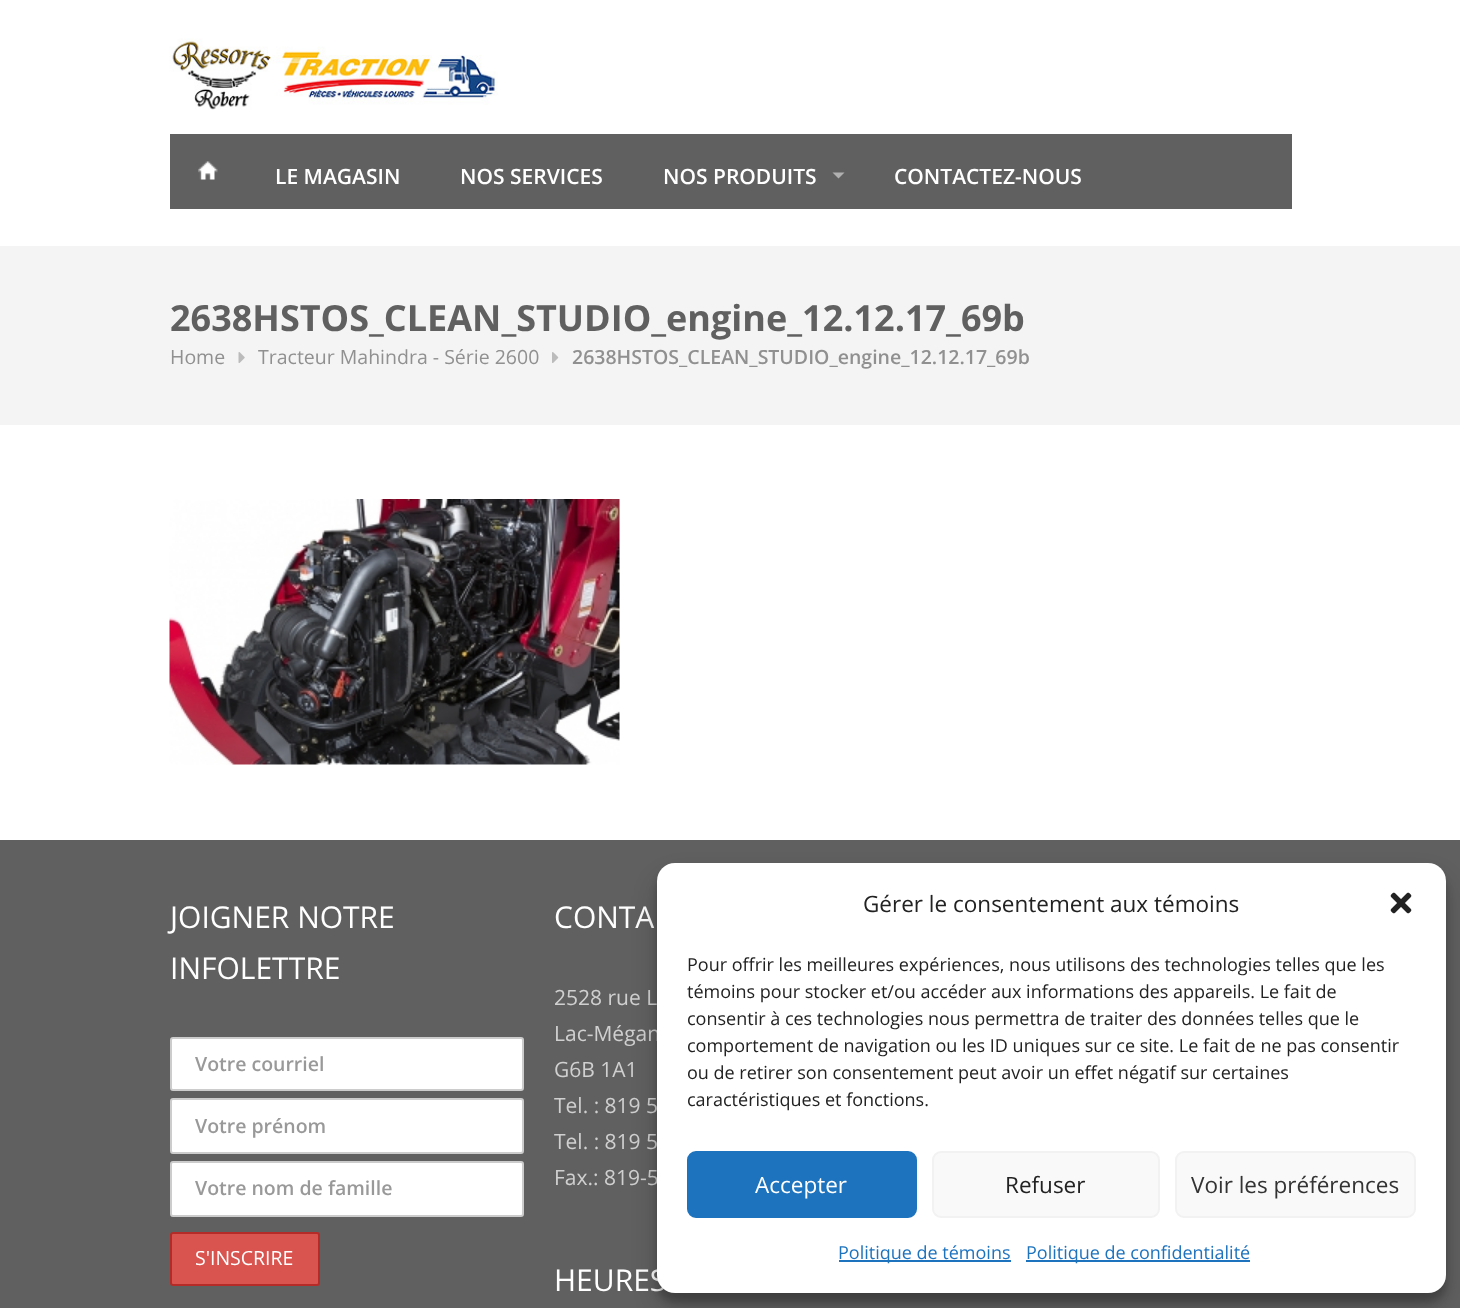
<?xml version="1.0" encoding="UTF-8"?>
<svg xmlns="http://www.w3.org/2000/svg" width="1460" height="1308">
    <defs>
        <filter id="blur1" x="-50%" y="-200%" width="200%" height="500%"><feGaussianBlur stdDeviation="4.5"/></filter>
        <filter id="blur2" x="-50%" y="-200%" width="200%" height="500%"><feGaussianBlur stdDeviation="15"/></filter>
    </defs>
    <rect width="100%" height="100%" fill="#FFFFFF"/>
    <image x="169" y="38" width="329" height="72" href="img_01.png"/>
    <rect x="170" y="134" width="1122" height="75" fill="#606060"/>
    <image x="198" y="161" width="20" height="19" href="img_02.png"/>
    <text x="275" y="184" font-family="Open Sans" font-size="21" font-weight="600" fill="#FFFFFF">LE MAGASIN</text>
    <text x="460" y="184" font-family="Open Sans" font-size="21" font-weight="600" fill="#FFFFFF">NOS SERVICES</text>
    <text x="663" y="184" font-family="Open Sans" font-size="21" font-weight="600" fill="#FFFFFF">NOS PRODUITS</text>
    <path d="M 832.5 172.5 H 844.5 L 838.5 178.5 Z" fill="#B0B0B0"/>
    <text x="894" y="184" font-family="Open Sans" font-size="21" font-weight="600" fill="#FFFFFF">CONTACTEZ-NOUS</text>
    <rect x="0" y="246" width="1460" height="179" fill="#F4F4F4"/>
    <text x="170" y="331" font-family="Open Sans" font-size="36" font-weight="700" fill="#606060">2638HSTOS_CLEAN_STUDIO_engine_12.12.17_69b</text>
    <text x="170" y="364" font-family="Open Sans" font-size="19.5" fill="#909090">Home</text>
    <image x="238" y="352" width="7" height="11" href="img_03.png"/>
    <text x="258" y="364" font-family="Open Sans" font-size="19.5" fill="#909090">Tracteur Mahindra - Série 2600</text>
    <image x="552" y="352" width="7" height="11" href="img_04.png"/>
    <text x="572" y="364" font-family="Open Sans" font-size="19.5" font-weight="600" fill="#909090">2638HSTOS_CLEAN_STUDIO_engine_12.12.17_69b</text>
    <image x="169" y="499" width="451" height="266" href="img_05.png"/>
    <rect x="0" y="840" width="1460" height="468" fill="#606060"/>
    <text font-family="Open Sans" font-size="30" fill="#FFFFFF">
        <tspan x="170" y="928">JOIGNER NOTRE</tspan>
        <tspan x="170" y="979">INFOLETTRE</tspan>
    </text>
    <rect x="171" y="1038" width="352" height="52" rx="2" fill="#FFFFFF" stroke="#CCCCCC" stroke-width="2"/>
    <text x="195" y="1071" font-family="Open Sans" font-size="19.5" font-weight="600" fill="#999999">Votre courriel</text>
    <rect x="171" y="1099" width="352" height="54" rx="2" fill="#FFFFFF" stroke="#CCCCCC" stroke-width="2"/>
    <text x="195" y="1133" font-family="Open Sans" font-size="19.5" font-weight="600" fill="#999999">Votre prénom</text>
    <rect x="171" y="1162" width="352" height="54" rx="2" fill="#FFFFFF" stroke="#CCCCCC" stroke-width="2"/>
    <text x="195" y="1195" font-family="Open Sans" font-size="19.5" font-weight="600" fill="#999999">Votre nom de famille</text>
    <rect x="171" y="1233" width="148" height="52" rx="2" fill="#D9534F" stroke="#B52B27" stroke-width="2"/>
    <text x="195" y="1265" font-family="Open Sans" font-size="19.5" fill="#FFFFFF">S'INSCRIRE</text>
    <text x="554" y="928" font-family="Open Sans" font-size="30" fill="#FFFFFF">CONTA</text>
    <text font-family="Open Sans" font-size="21" fill="#D0D0D0">
        <tspan x="554" y="1005">2528 rue L</tspan>
        <tspan x="554" y="1041">Lac-Mégan</tspan>
        <tspan x="554" y="1077">G6B 1A1</tspan>
        <tspan x="554" y="1113">Tel. : 819 5</tspan>
        <tspan x="554" y="1149">Tel. : 819 5</tspan>
        <tspan x="554" y="1185">Fax.: 819-5</tspan>
    </text>
    <text x="554" y="1291" font-family="Open Sans" font-size="30" fill="#FFFFFF">HEURES</text>
    <rect x="657" y="872" width="789" height="430" rx="18" fill="#000000" fill-opacity="0.23" filter="url(#blur1)"/>
    <rect x="657" y="878" width="789" height="430" rx="18" fill="#000000" fill-opacity="0.19" filter="url(#blur2)"/>
    <rect x="657" y="863" width="789" height="430" rx="18" fill="#FFFFFF"/>
    <text x="863" y="912" font-family="Open Sans" font-size="22.5" fill="#222222">Gérer le consentement aux témoins</text>
    <image x="1390" y="892" width="22" height="22" href="img_06.png"/>
    <text font-family="Open Sans" font-size="18" fill="#222222">
        <tspan x="687" y="971">Pour offrir les meilleures expériences, nous utilisons des technologies telles que les</tspan>
        <tspan x="687" y="998">témoins pour stocker et/ou accéder aux informations des appareils. Le fait de</tspan>
        <tspan x="687" y="1025">consentir à ces technologies nous permettra de traiter des données telles que le</tspan>
        <tspan x="687" y="1052">comportement de navigation ou les ID uniques sur ce site. Le fait de ne pas consentir</tspan>
        <tspan x="687" y="1079">ou de retirer son consentement peut avoir un effet négatif sur certaines</tspan>
        <tspan x="687" y="1106">caractéristiques et fonctions.</tspan>
    </text>
    <rect x="688" y="1152" width="228" height="65" rx="8" fill="#1E73BE" stroke="#1E73BE" stroke-width="2"/>
    <text x="755" y="1193" font-family="Open Sans" font-size="22.5" fill="#FFFFFF">Accepter</text>
    <rect x="933" y="1152" width="226" height="65" rx="8" fill="#F9F9F9" stroke="#F2F2F2" stroke-width="2"/>
    <text x="1005" y="1193" font-family="Open Sans" font-size="22.5" fill="#222222">Refuser</text>
    <rect x="1176" y="1152" width="239" height="65" rx="8" fill="#F9F9F9" stroke="#F2F2F2" stroke-width="2"/>
    <text x="1191" y="1193" font-family="Open Sans" font-size="22.5" fill="#333333">Voir les préférences</text>
    <rect x="839" y="1260" width="172" height="2" fill="#1E73BE"/>
    <text x="838" y="1259" font-family="Open Sans" font-size="18" fill="#1E73BE">Politique de témoins</text>
    <rect x="1026" y="1260" width="224" height="2" fill="#1E73BE"/>
    <text x="1026" y="1259" font-family="Open Sans" font-size="18" fill="#1E73BE">Politique de confidentialité</text>
</svg>
